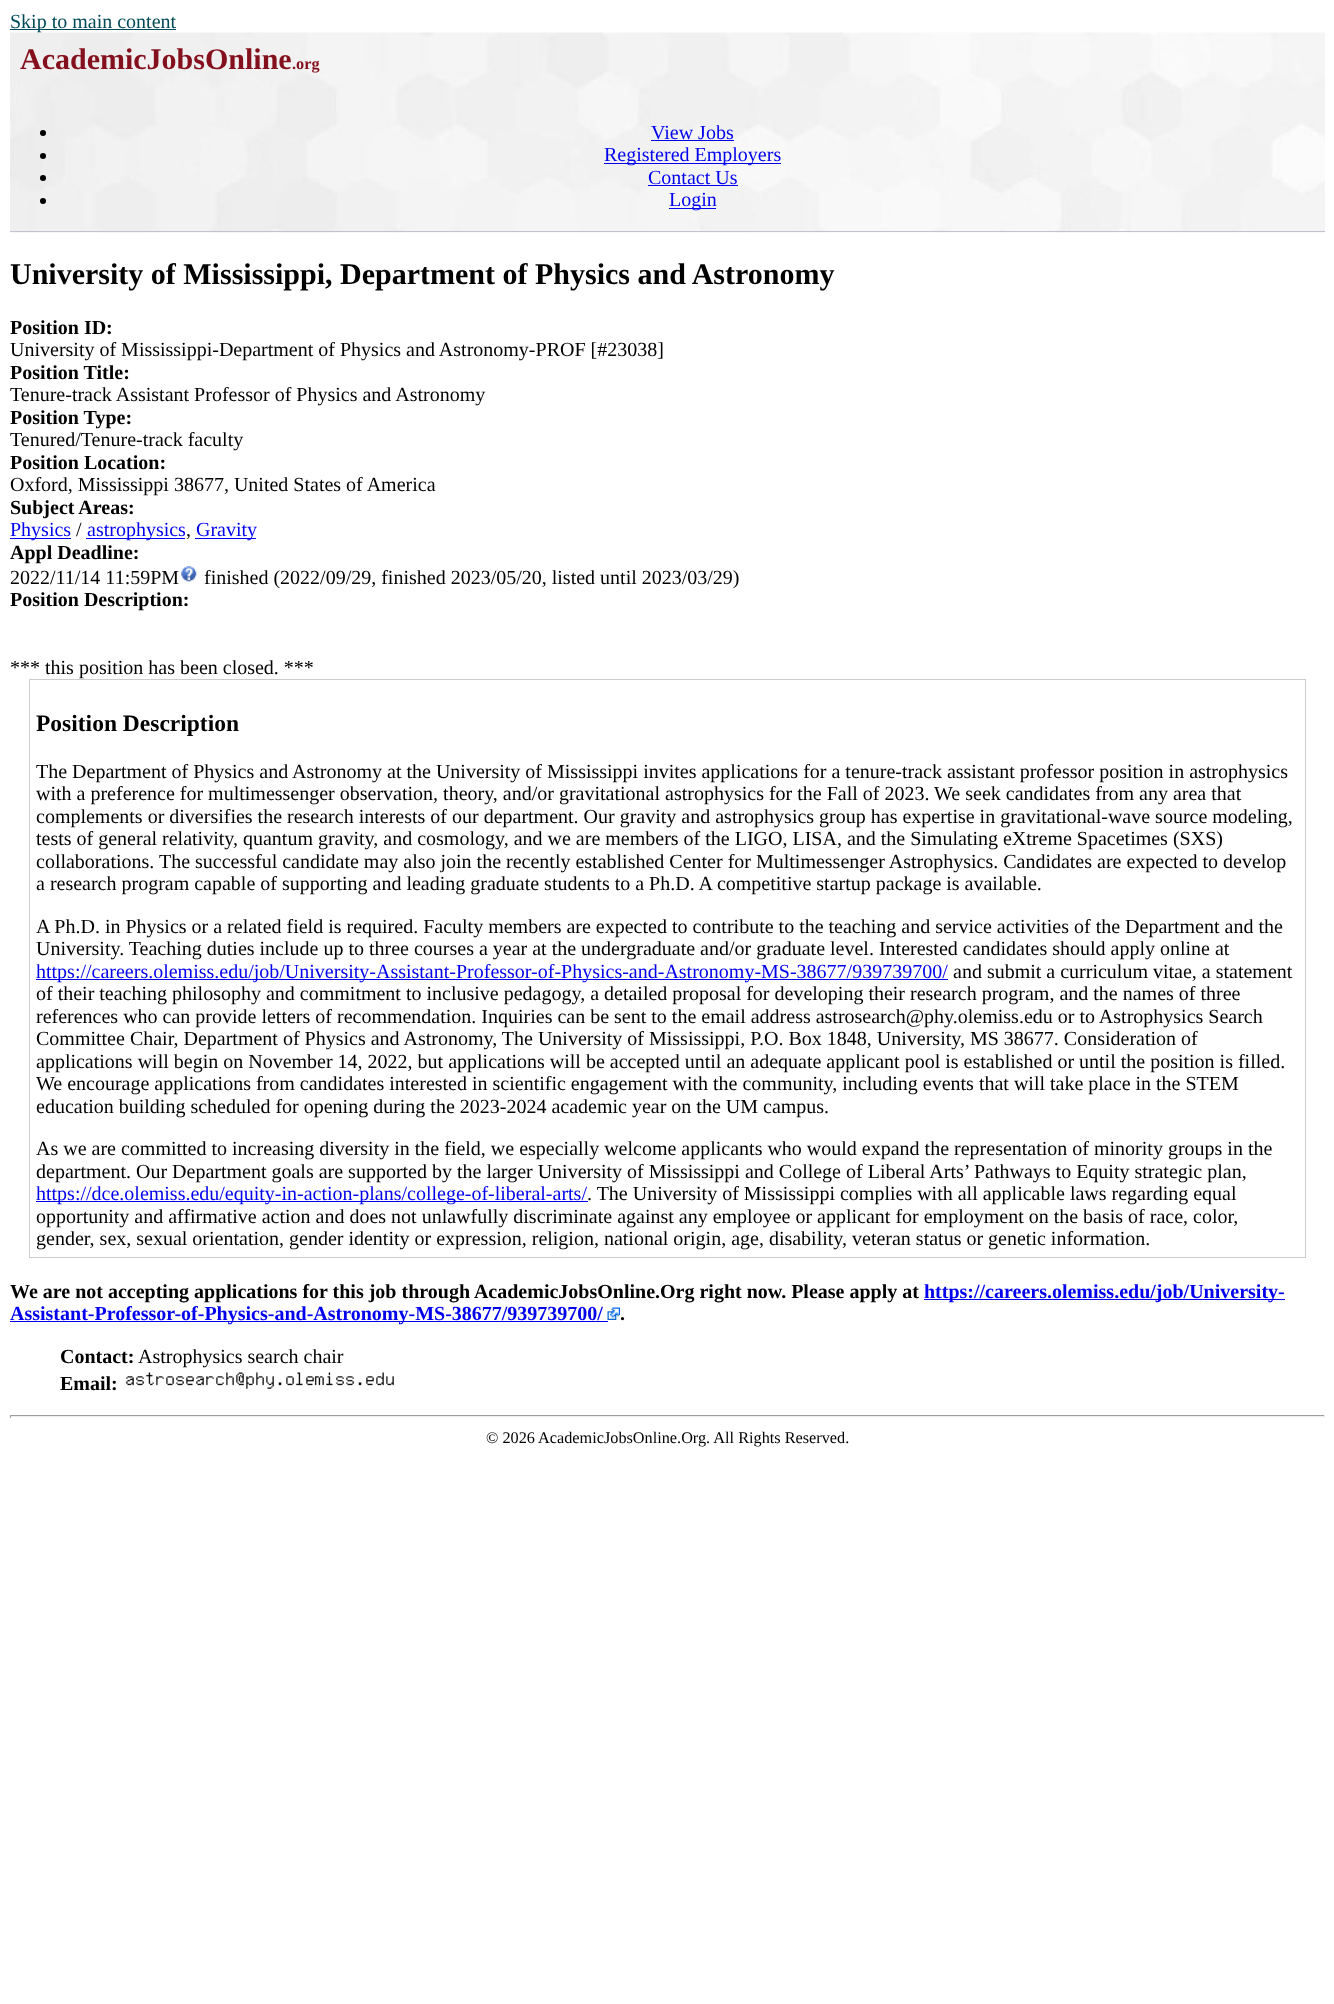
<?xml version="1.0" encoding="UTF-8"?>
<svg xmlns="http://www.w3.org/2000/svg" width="1334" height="2004">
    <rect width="100%" height="100%" fill="#FFFFFF"/>
    <rect x="10" y="29" width="166" height="1" fill="#004A57"/>
    <image x="10" y="32" width="1315" height="201" href="img_01.png"/>
    <text x="10" y="28" font-family="Liberation Serif" font-size="20" fill="#004A57">Skip to main content</text>
    <text x="20" y="69" font-family="Liberation Serif" font-size="30" font-weight="700" fill="#84101D">AcademicJobsOnline</text>
    <text x="292" y="69" font-family="Liberation Serif" font-size="16.25" font-weight="700" fill="#84101D">.org</text>
    <circle cx="43" cy="133" r="3" fill="#000000"/>
    <text x="651" y="139" font-family="Liberation Serif" font-size="20" fill="#0000EE">View Jobs</text>
    <rect x="651" y="140" width="83" height="1" fill="#0000EE"/>
    <circle cx="43" cy="156" r="3" fill="#000000"/>
    <rect x="604" y="163" width="177" height="1" fill="#0000EE"/>
    <text x="604" y="161" font-family="Liberation Serif" font-size="20" fill="#0000EE">Registered Employers</text>
    <circle cx="43" cy="178" r="3" fill="#000000"/>
    <text x="648" y="184" font-family="Liberation Serif" font-size="20" fill="#0000EE">Contact Us</text>
    <rect x="648" y="185" width="90" height="1" fill="#0000EE"/>
    <circle cx="43" cy="201" r="3" fill="#000000"/>
    <rect x="669" y="208" width="47" height="1" fill="#0000EE"/>
    <text x="669" y="206" font-family="Liberation Serif" font-size="20" fill="#0000EE">Login</text>
    <rect x="10" y="231" width="1315" height="1" fill="#C0C2CE"/>
    <text x="10" y="284" font-family="Liberation Serif" font-size="30" font-weight="700" fill="#000000">University of Mississippi, Department of Physics and Astronomy</text>
    <text x="10" y="334" font-family="Liberation Serif" font-size="20" font-weight="700" fill="#000000">Position ID:</text>
    <text x="10" y="356" font-family="Liberation Serif" font-size="20" fill="#000000">University of Mississippi-Department of Physics and Astronomy-PROF [#23038]</text>
    <text x="10" y="379" font-family="Liberation Serif" font-size="20" font-weight="700" fill="#000000">Position Title:</text>
    <text x="10" y="401" font-family="Liberation Serif" font-size="20" fill="#000000">Tenure-track Assistant Professor of Physics and Astronomy</text>
    <text x="10" y="424" font-family="Liberation Serif" font-size="20" font-weight="700" fill="#000000">Position Type:</text>
    <text x="10" y="446" font-family="Liberation Serif" font-size="20" fill="#000000">Tenured/Tenure-track faculty</text>
    <text x="10" y="469" font-family="Liberation Serif" font-size="20" font-weight="700" fill="#000000">Position Location:</text>
    <text x="10" y="491" font-family="Liberation Serif" font-size="20" fill="#000000">Oxford, Mississippi 38677, United States of America</text>
    <text x="10" y="514" font-family="Liberation Serif" font-size="20" font-weight="700" fill="#000000">Subject Areas:</text>
    <rect x="10" y="538" width="61" height="1" fill="#0000EE"/>
    <text x="10" y="536" font-family="Liberation Serif" font-size="20" fill="#0000EE">Physics</text>
    <text x="76" y="536" font-family="Liberation Serif" font-size="20" fill="#000000">/</text>
    <rect x="86" y="538" width="99" height="1" fill="#0000EE"/>
    <text x="87" y="536" font-family="Liberation Serif" font-size="20" fill="#0000EE">astrophysics</text>
    <text x="186" y="536" font-family="Liberation Serif" font-size="20" fill="#000000">,</text>
    <rect x="195" y="538" width="61" height="1" fill="#0000EE"/>
    <text x="196" y="536" font-family="Liberation Serif" font-size="20" fill="#0000EE">Gravity</text>
    <text x="10" y="559" font-family="Liberation Serif" font-size="20" font-weight="700" fill="#000000">Appl Deadline:</text>
    <text x="10" y="584" font-family="Liberation Serif" font-size="20" fill="#000000">2022/11/14 11:59PM</text>
    <image x="181" y="566" width="16" height="16" href="img_02.png"/>
    <text x="204" y="584" font-family="Liberation Serif" font-size="20" fill="#000000">finished (2022/09/29, finished 2023/05/20, listed until 2023/03/29)</text>
    <text x="10" y="606" font-family="Liberation Serif" font-size="20" font-weight="700" fill="#000000">Position Description:</text>
    <text x="10" y="674" font-family="Liberation Serif" font-size="20" fill="#000000">*** this position has been closed. ***</text>
    <rect x="29.5" y="679.5" width="1276" height="578" fill="none" stroke="#CCCCCC"/>
    <text x="36" y="731" font-family="Liberation Serif" font-size="23.5" font-weight="700" fill="#000000">Position Description</text>
    <text font-family="Liberation Serif" font-size="20" fill="#000000">
        <tspan x="36" y="778">The Department of Physics and Astronomy at the University of Mississippi invites applications for a tenure-track assistant professor position in astrophysics</tspan>
        <tspan x="36" y="800">with a preference for multimessenger observation, theory, and/or gravitational astrophysics for the Fall of 2023. We seek candidates from any area that</tspan>
        <tspan x="36" y="823">complements or diversifies the research interests of our department. Our gravity and astrophysics group has expertise in gravitational-wave source modeling,</tspan>
        <tspan x="36" y="845">tests of general relativity, quantum gravity, and cosmology, and we are members of the LIGO, LISA, and the Simulating eXtreme Spacetimes (SXS)</tspan>
        <tspan x="36" y="868">collaborations. The successful candidate may also join the recently established Center for Multimessenger Astrophysics. Candidates are expected to develop</tspan>
        <tspan x="36" y="890">a research program capable of supporting and leading graduate students to a Ph.D. A competitive startup package is available.</tspan>
    </text>
    <text font-family="Liberation Serif" font-size="20" fill="#000000">
        <tspan x="36" y="933">A Ph.D. in Physics or a related field is required. Faculty members are expected to contribute to the teaching and service activities of the Department and the</tspan>
        <tspan x="36" y="955">University. Teaching duties include up to three courses a year at the undergraduate and/or graduate level. Interested candidates should apply online at</tspan>
    </text>
    <rect x="36" y="979" width="912" height="1" fill="#0000EE"/>
    <text x="36" y="978" font-family="Liberation Serif" font-size="20" fill="#0000EE">https://careers.olemiss.edu/job/University-Assistant-Professor-of-Physics-and-Astronomy-MS-38677/939739700/</text>
    <text x="953" y="978" font-family="Liberation Serif" font-size="20" fill="#000000">and submit a curriculum vitae, a statement</text>
    <text font-family="Liberation Serif" font-size="20" fill="#000000">
        <tspan x="36" y="1000">of their teaching philosophy and commitment to inclusive pedagogy, a detailed proposal for developing their research program, and the names of three</tspan>
        <tspan x="36" y="1023">references who can provide letters of recommendation. Inquiries can be sent to the email address astrosearch@phy.olemiss.edu or to Astrophysics Search</tspan>
        <tspan x="36" y="1045">Committee Chair, Department of Physics and Astronomy, The University of Mississippi, P.O. Box 1848, University, MS 38677. Consideration of</tspan>
        <tspan x="36" y="1068">applications will begin on November 14, 2022, but applications will be accepted until an adequate applicant pool is established or until the position is filled.</tspan>
        <tspan x="36" y="1090">We encourage applications from candidates interested in scientific engagement with the community, including events that will take place in the STEM</tspan>
        <tspan x="36" y="1113">education building scheduled for opening during the 2023-2024 academic year on the UM campus.</tspan>
    </text>
    <text font-family="Liberation Serif" font-size="20" fill="#000000">
        <tspan x="36" y="1155">As we are committed to increasing diversity in the field, we especially welcome applicants who would expand the representation of minority groups in the</tspan>
        <tspan x="36" y="1178">department. Our Department goals are supported by the larger University of Mississippi and College of Liberal Arts’ Pathways to Equity strategic plan,</tspan>
    </text>
    <rect x="36" y="1201" width="552" height="1" fill="#0000EE"/>
    <text x="36" y="1200" font-family="Liberation Serif" font-size="20" fill="#0000EE">https://dce.olemiss.edu/equity-in-action-plans/college-of-liberal-arts/</text>
    <text x="587" y="1200" font-family="Liberation Serif" font-size="20" fill="#000000">. The University of Mississippi complies with all applicable laws regarding equal</text>
    <text font-family="Liberation Serif" font-size="20" fill="#000000">
        <tspan x="36" y="1223">opportunity and affirmative action and does not unlawfully discriminate against any employee or applicant for employment on the basis of race, color,</tspan>
        <tspan x="36" y="1245">gender, sex, sexual orientation, gender identity or expression, religion, national origin, age, disability, veteran status or genetic information.</tspan>
    </text>
    <text x="10" y="1298" font-family="Liberation Serif" font-size="20" font-weight="700" fill="#000000">We are not accepting applications for this job through AcademicJobsOnline.Org right now. Please apply at</text>
    <rect x="924" y="1299" width="361" height="1" fill="#0000EE"/>
    <text x="924" y="1298" font-family="Liberation Serif" font-size="20" font-weight="700" fill="#0000EE">https://careers.olemiss.edu/job/University-</text>
    <rect x="10" y="1321" width="598" height="1" fill="#0000EE"/>
    <text x="10" y="1320" font-family="Liberation Serif" font-size="20" font-weight="700" fill="#0000EE">Assistant-Professor-of-Physics-and-Astronomy-MS-38677/939739700/</text>
    <image x="607" y="1307" width="13" height="13" href="img_03.png"/>
    <text x="620" y="1320" font-family="Liberation Serif" font-size="20" font-weight="700" fill="#000000">.</text>
    <text x="60" y="1363" font-family="Liberation Serif" font-size="20" font-weight="700" fill="#000000">Contact:</text>
    <text x="138" y="1363" font-family="Liberation Serif" font-size="20" fill="#000000">Astrophysics search chair</text>
    <text x="60" y="1390" font-family="Liberation Serif" font-size="20" font-weight="700" fill="#000000">Email:</text>
    <image x="126" y="1372" width="268" height="17" href="img_04.png"/>
    <rect x="10" y="1415" width="1315" height="1" fill="#9F9F9F"/>
    <rect x="1324" y="1415" width="1" height="3" fill="#EEEEEE"/>
    <rect x="10" y="1416" width="1315" height="1" fill="#EEEEEE"/>
    <rect x="10" y="1415" width="1" height="3" fill="#9F9F9F"/>
    <text x="486" y="1443" font-family="Liberation Serif" font-size="16.25" fill="#000000">© 2026 AcademicJobsOnline.Org. All Rights Reserved.</text>
</svg>
